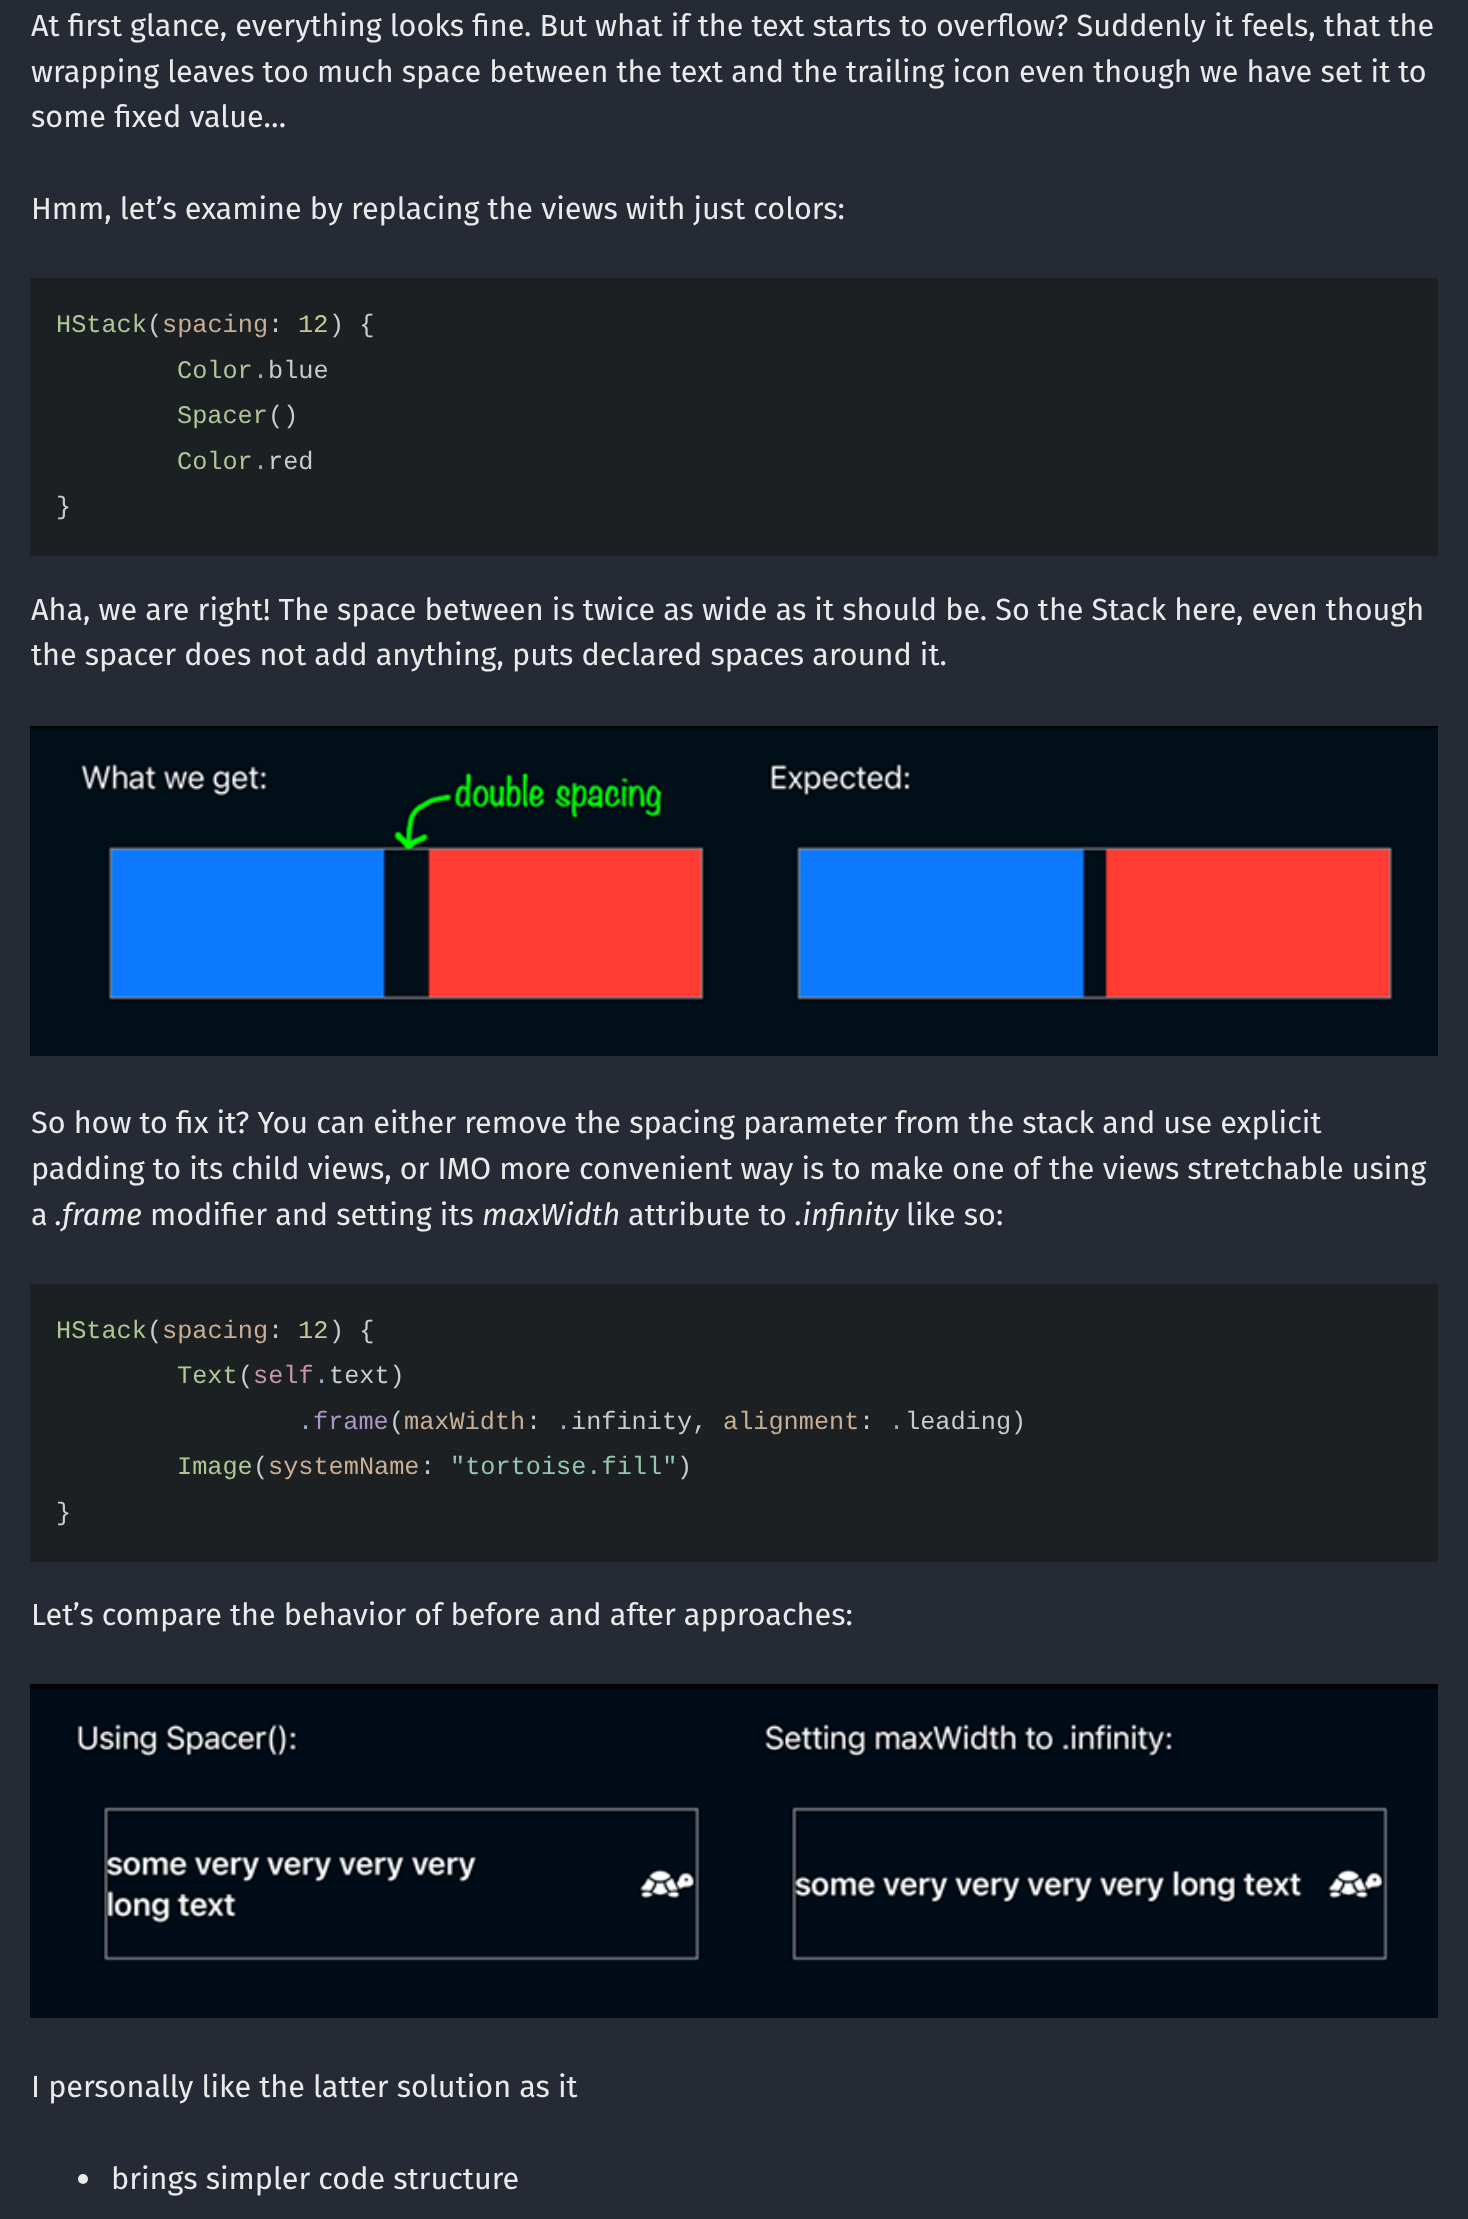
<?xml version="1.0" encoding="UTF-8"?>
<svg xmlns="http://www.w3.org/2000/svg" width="1468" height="2219">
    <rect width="100%" height="100%" fill="#252A34"/>
    <text font-family="Fira Sans" font-size="30.6" fill="#EAEAEA">
        <tspan x="31" y="36">At first glance, everything looks fine. But what if the text starts to overflow? Suddenly it feels, that the</tspan>
        <tspan x="31" y="82">wrapping leaves too much space between the text and the trailing icon even though we have set it to</tspan>
        <tspan x="31" y="127">some fixed value…</tspan>
    </text>
    <text x="31" y="219" font-family="Fira Sans" font-size="30.6" fill="#EAEAEA">Hmm, let’s examine by replacing the views with just colors:</text>
    <rect x="30" y="278" width="1408" height="278" fill="#1C2023"/>
    <text x="56" y="332" font-family="Liberation Mono" font-size="25.25" fill="#AEC795">HStack</text>
    <text x="147" y="332" font-family="Liberation Mono" font-size="25.25" fill="#C7CCD1">(</text>
    <text x="162" y="332" font-family="Liberation Mono" font-size="25.25" fill="#C7AE95">spacing</text>
    <text x="268" y="332" font-family="Liberation Mono" font-size="25.25" fill="#C7CCD1">:</text>
    <text x="298" y="332" font-family="Liberation Mono" font-size="25.25" fill="#C7C795">12</text>
    <text x="329" y="332" font-family="Liberation Mono" font-size="25.25" fill="#C7CCD1">) {</text>
    <text x="177" y="378" font-family="Liberation Mono" font-size="25.25" fill="#AEC795">Color</text>
    <text x="253" y="378" font-family="Liberation Mono" font-size="25.25" fill="#95AEC7">.</text>
    <text x="268" y="378" font-family="Liberation Mono" font-size="25.25" fill="#C7CCD1">blue</text>
    <text x="177" y="423" font-family="Liberation Mono" font-size="25.25" fill="#AEC795">Spacer</text>
    <text x="268" y="423" font-family="Liberation Mono" font-size="25.25" fill="#C7CCD1">()</text>
    <text x="177" y="469" font-family="Liberation Mono" font-size="25.25" fill="#AEC795">Color</text>
    <text x="253" y="469" font-family="Liberation Mono" font-size="25.25" fill="#95AEC7">.</text>
    <text x="268" y="469" font-family="Liberation Mono" font-size="25.25" fill="#C7CCD1">red</text>
    <text x="56" y="514" font-family="Liberation Mono" font-size="25.25" fill="#C7CCD1">}</text>
    <text font-family="Fira Sans" font-size="30.6" fill="#EAEAEA">
        <tspan x="31" y="620">Aha, we are right! The space between is twice as wide as it should be. So the Stack here, even though</tspan>
        <tspan x="31" y="665">the spacer does not add anything, puts declared spaces around it.</tspan>
    </text>
    <image x="30" y="726" width="1408" height="330" href="img_01.png"/>
    <text font-family="Fira Sans" font-size="30.6" fill="#EAEAEA">
        <tspan x="31" y="1133">So how to fix it? You can either remove the spacing parameter from the stack and use explicit</tspan>
        <tspan x="31" y="1179">padding to its child views, or IMO more convenient way is to make one of the views stretchable using</tspan>
        <tspan x="31" y="1225">a</tspan>
    </text>
    <text x="55" y="1225" font-family="Fira Sans" font-size="30.6" font-style="italic" fill="#EAEAEA">.frame</text>
    <text x="150" y="1225" font-family="Fira Sans" font-size="30.6" fill="#EAEAEA">modifier and setting its</text>
    <text x="482" y="1225" font-family="Fira Sans" font-size="30.6" font-style="italic" fill="#EAEAEA">maxWidth</text>
    <text x="628" y="1225" font-family="Fira Sans" font-size="30.6" fill="#EAEAEA">attribute to</text>
    <text x="795" y="1225" font-family="Fira Sans" font-size="30.6" font-style="italic" fill="#EAEAEA">.infinity</text>
    <text x="906" y="1225" font-family="Fira Sans" font-size="30.6" fill="#EAEAEA">like so:</text>
    <rect x="30" y="1284" width="1408" height="278" fill="#1C2023"/>
    <text x="56" y="1338" font-family="Liberation Mono" font-size="25.25" fill="#AEC795">HStack</text>
    <text x="147" y="1338" font-family="Liberation Mono" font-size="25.25" fill="#C7CCD1">(</text>
    <text x="162" y="1338" font-family="Liberation Mono" font-size="25.25" fill="#C7AE95">spacing</text>
    <text x="268" y="1338" font-family="Liberation Mono" font-size="25.25" fill="#C7CCD1">:</text>
    <text x="298" y="1338" font-family="Liberation Mono" font-size="25.25" fill="#C7C795">12</text>
    <text x="329" y="1338" font-family="Liberation Mono" font-size="25.25" fill="#C7CCD1">) {</text>
    <text x="177" y="1383" font-family="Liberation Mono" font-size="25.25" fill="#AEC795">Text</text>
    <text x="238" y="1383" font-family="Liberation Mono" font-size="25.25" fill="#C7CCD1">(</text>
    <text x="253" y="1383" font-family="Liberation Mono" font-size="25.25" fill="#C795AE">self</text>
    <text x="314" y="1383" font-family="Liberation Mono" font-size="25.25" fill="#95AEC7">.</text>
    <text x="329" y="1383" font-family="Liberation Mono" font-size="25.25" fill="#C7CCD1">text)</text>
    <text x="298" y="1429" font-family="Liberation Mono" font-size="25.25" fill="#95AEC7">.</text>
    <text x="313" y="1429" font-family="Liberation Mono" font-size="25.25" fill="#AE95C7">frame</text>
    <text x="389" y="1429" font-family="Liberation Mono" font-size="25.25" fill="#C7CCD1">(</text>
    <text x="404" y="1429" font-family="Liberation Mono" font-size="25.25" fill="#C7AE95">maxWidth</text>
    <text x="526" y="1429" font-family="Liberation Mono" font-size="25.25" fill="#C7CCD1">:</text>
    <text x="556" y="1429" font-family="Liberation Mono" font-size="25.25" fill="#95AEC7">.</text>
    <text x="571" y="1429" font-family="Liberation Mono" font-size="25.25" fill="#C7CCD1">infinity,</text>
    <text x="723" y="1429" font-family="Liberation Mono" font-size="25.25" fill="#C7AE95">alignment</text>
    <text x="859" y="1429" font-family="Liberation Mono" font-size="25.25" fill="#C7CCD1">:</text>
    <text x="889" y="1429" font-family="Liberation Mono" font-size="25.25" fill="#95AEC7">.</text>
    <text x="905" y="1429" font-family="Liberation Mono" font-size="25.25" fill="#C7CCD1">leading)</text>
    <text x="177" y="1474" font-family="Liberation Mono" font-size="25.25" fill="#AEC795">Image</text>
    <text x="253" y="1474" font-family="Liberation Mono" font-size="25.25" fill="#C7CCD1">(</text>
    <text x="268" y="1474" font-family="Liberation Mono" font-size="25.25" fill="#C7AE95">systemName</text>
    <text x="420" y="1474" font-family="Liberation Mono" font-size="25.25" fill="#C7CCD1">:</text>
    <text x="450" y="1474" font-family="Liberation Mono" font-size="25.25" fill="#95C7AE">"tortoise.fill"</text>
    <text x="677" y="1474" font-family="Liberation Mono" font-size="25.25" fill="#C7CCD1">)</text>
    <text x="56" y="1520" font-family="Liberation Mono" font-size="25.25" fill="#C7CCD1">}</text>
    <text x="31" y="1625" font-family="Fira Sans" font-size="30.6" fill="#EAEAEA">Let’s compare the behavior of before and after approaches:</text>
    <image x="30" y="1684" width="1408" height="334" href="img_02.png"/>
    <text x="31" y="2097" font-family="Fira Sans" font-size="30.6" fill="#EAEAEA">I personally like the latter solution as it</text>
    <circle cx="83" cy="2179" r="5" fill="#EAEAEA"/>
    <text x="111" y="2189" font-family="Fira Sans" font-size="30.6" fill="#EAEAEA">brings simpler code structure</text>
</svg>
